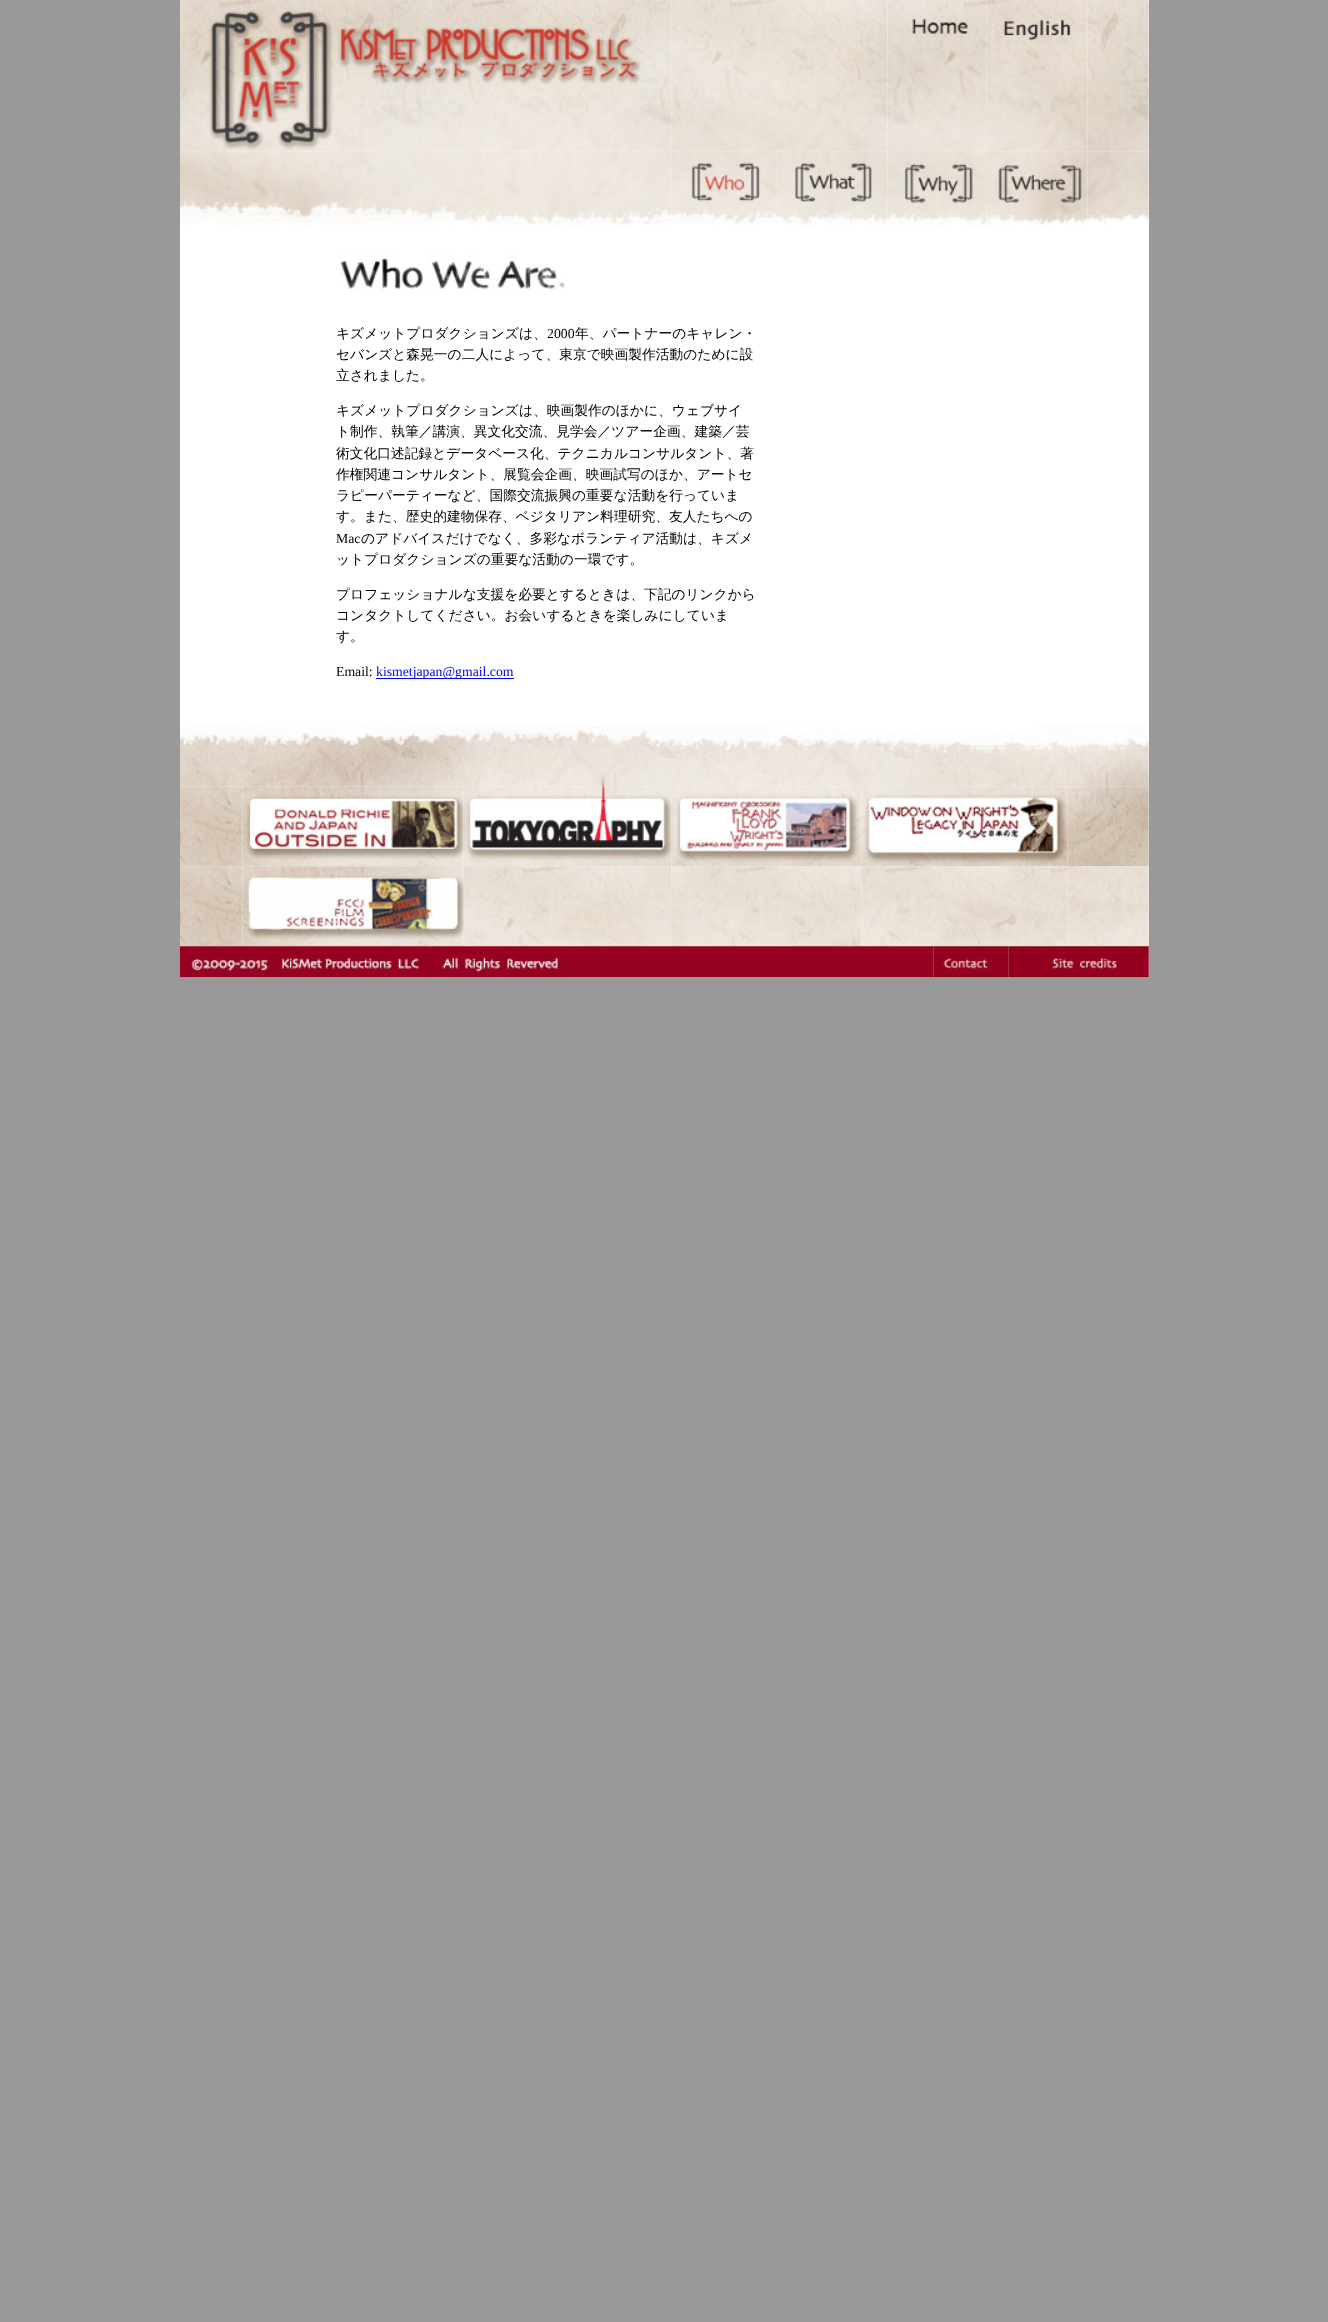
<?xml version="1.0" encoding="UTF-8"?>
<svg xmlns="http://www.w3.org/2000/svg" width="1328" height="2322">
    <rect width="100%" height="100%" fill="#999999"/>
    <rect x="180" y="0" width="969" height="978" fill="#FFFFFF"/>
    <image x="180" y="0" width="492" height="152" href="img_01.png"/>
    <image x="671" y="0" width="217" height="152" href="img_02.png"/>
    <image x="887" y="0" width="100" height="152" href="img_03.png"/>
    <image x="986" y="0" width="102" height="152" href="img_04.png"/>
    <image x="1087" y="0" width="62" height="152" href="img_05.png"/>
    <image x="180" y="151" width="492" height="75" href="img_06.png"/>
    <image x="671" y="151" width="106" height="74" href="img_07.png"/>
    <image x="776" y="151" width="112" height="75" href="img_08.png"/>
    <image x="887" y="151" width="100" height="75" href="img_09.png"/>
    <image x="986" y="151" width="102" height="75" href="img_10.png"/>
    <image x="1087" y="151" width="62" height="74" href="img_11.png"/>
    <image x="339" y="254" width="226" height="37" href="img_12.png"/>
    <text x="336" y="338" font-family="WenQuanYi Zen Hei" font-size="13.75" font-weight="500" fill="#000000">キズメットプロダクションズは、</text>
    <text x="547" y="338" font-family="Liberation Serif" font-size="13.75" fill="#000000">2000</text>
    <text x="575" y="338" font-family="WenQuanYi Zen Hei" font-size="13.75" font-weight="500" fill="#000000">年、パートナーのキャレン・</text>
    <text font-family="WenQuanYi Zen Hei" font-size="13.75" font-weight="500" fill="#000000">
        <tspan x="336" y="359">セバンズと森晃一の二人によって、東京で映画製作活動のために設</tspan>
        <tspan x="336" y="380">立されました。</tspan>
    </text>
    <text font-family="WenQuanYi Zen Hei" font-size="13.75" font-weight="500" fill="#000000">
        <tspan x="336" y="415">キズメットプロダクションズは、映画製作のほかに、ウェブサイ</tspan>
        <tspan x="336" y="436">ト制作、執筆／講演、異文化交流、見学会／ツアー企画、建築／芸</tspan>
        <tspan x="336" y="458">術文化口述記録とデータベース化、テクニカルコンサルタント、著</tspan>
        <tspan x="336" y="479">作権関連コンサルタント、展覧会企画、映画試写のほか、アートセ</tspan>
        <tspan x="336" y="500">ラピーパーティーなど、国際交流振興の重要な活動を行っていま</tspan>
        <tspan x="336" y="521">す。また、歴史的建物保存、ベジタリアン料理研究、友人たちへの</tspan>
    </text>
    <text x="336" y="543" font-family="Liberation Serif" font-size="13.75" fill="#000000">Mac</text>
    <text x="361" y="543" font-family="WenQuanYi Zen Hei" font-size="13.75" font-weight="500" fill="#000000">のアドバイスだけでなく、多彩なボランティア活動は、キズメ</text>
    <text x="336" y="564" font-family="WenQuanYi Zen Hei" font-size="13.75" font-weight="500" fill="#000000">ットプロダクションズの重要な活動の一環です。</text>
    <text font-family="WenQuanYi Zen Hei" font-size="13.75" font-weight="500" fill="#000000">
        <tspan x="336" y="599">プロフェッショナルな支援を必要とするときは、下記のリンクから</tspan>
        <tspan x="336" y="620">コンタクトしてください。お会いするときを楽しみにしていま</tspan>
        <tspan x="336" y="641">す。</tspan>
    </text>
    <text x="336" y="676" font-family="Liberation Serif" font-size="13.75" fill="#000000">Email:</text>
    <rect x="376" y="678" width="138" height="1" fill="#0000EE"/>
    <text x="376" y="676" font-family="Liberation Serif" font-size="13.75" fill="#0000EE">kismetjapan@gmail.com</text>
    <image x="180" y="725" width="969" height="62" href="img_13.png"/>
    <image x="180" y="786" width="63" height="81" href="img_14.png"/>
    <image x="242" y="786" width="222" height="81" href="img_15.png"/>
    <image x="464" y="786" width="208" height="81" href="img_16.png"/>
    <image x="671" y="786" width="191" height="81" href="img_17.png"/>
    <image x="861" y="786" width="207" height="81" href="img_18.png"/>
    <image x="1067" y="786" width="82" height="81" href="img_19.png"/>
    <image x="180" y="866" width="63" height="81" href="img_20.png"/>
    <image x="242" y="866" width="222" height="81" href="img_21.png"/>
    <image x="463" y="866" width="209" height="81" href="img_22.png"/>
    <image x="671" y="866" width="191" height="81" href="img_23.png"/>
    <image x="861" y="866" width="207" height="81" href="img_24.png"/>
    <image x="1067" y="866" width="82" height="81" href="img_25.png"/>
    <image x="180" y="946" width="754" height="32" href="img_26.png"/>
    <image x="933" y="946" width="76" height="32" href="img_27.png"/>
    <image x="1008" y="946" width="141" height="32" href="img_28.png"/>
</svg>
